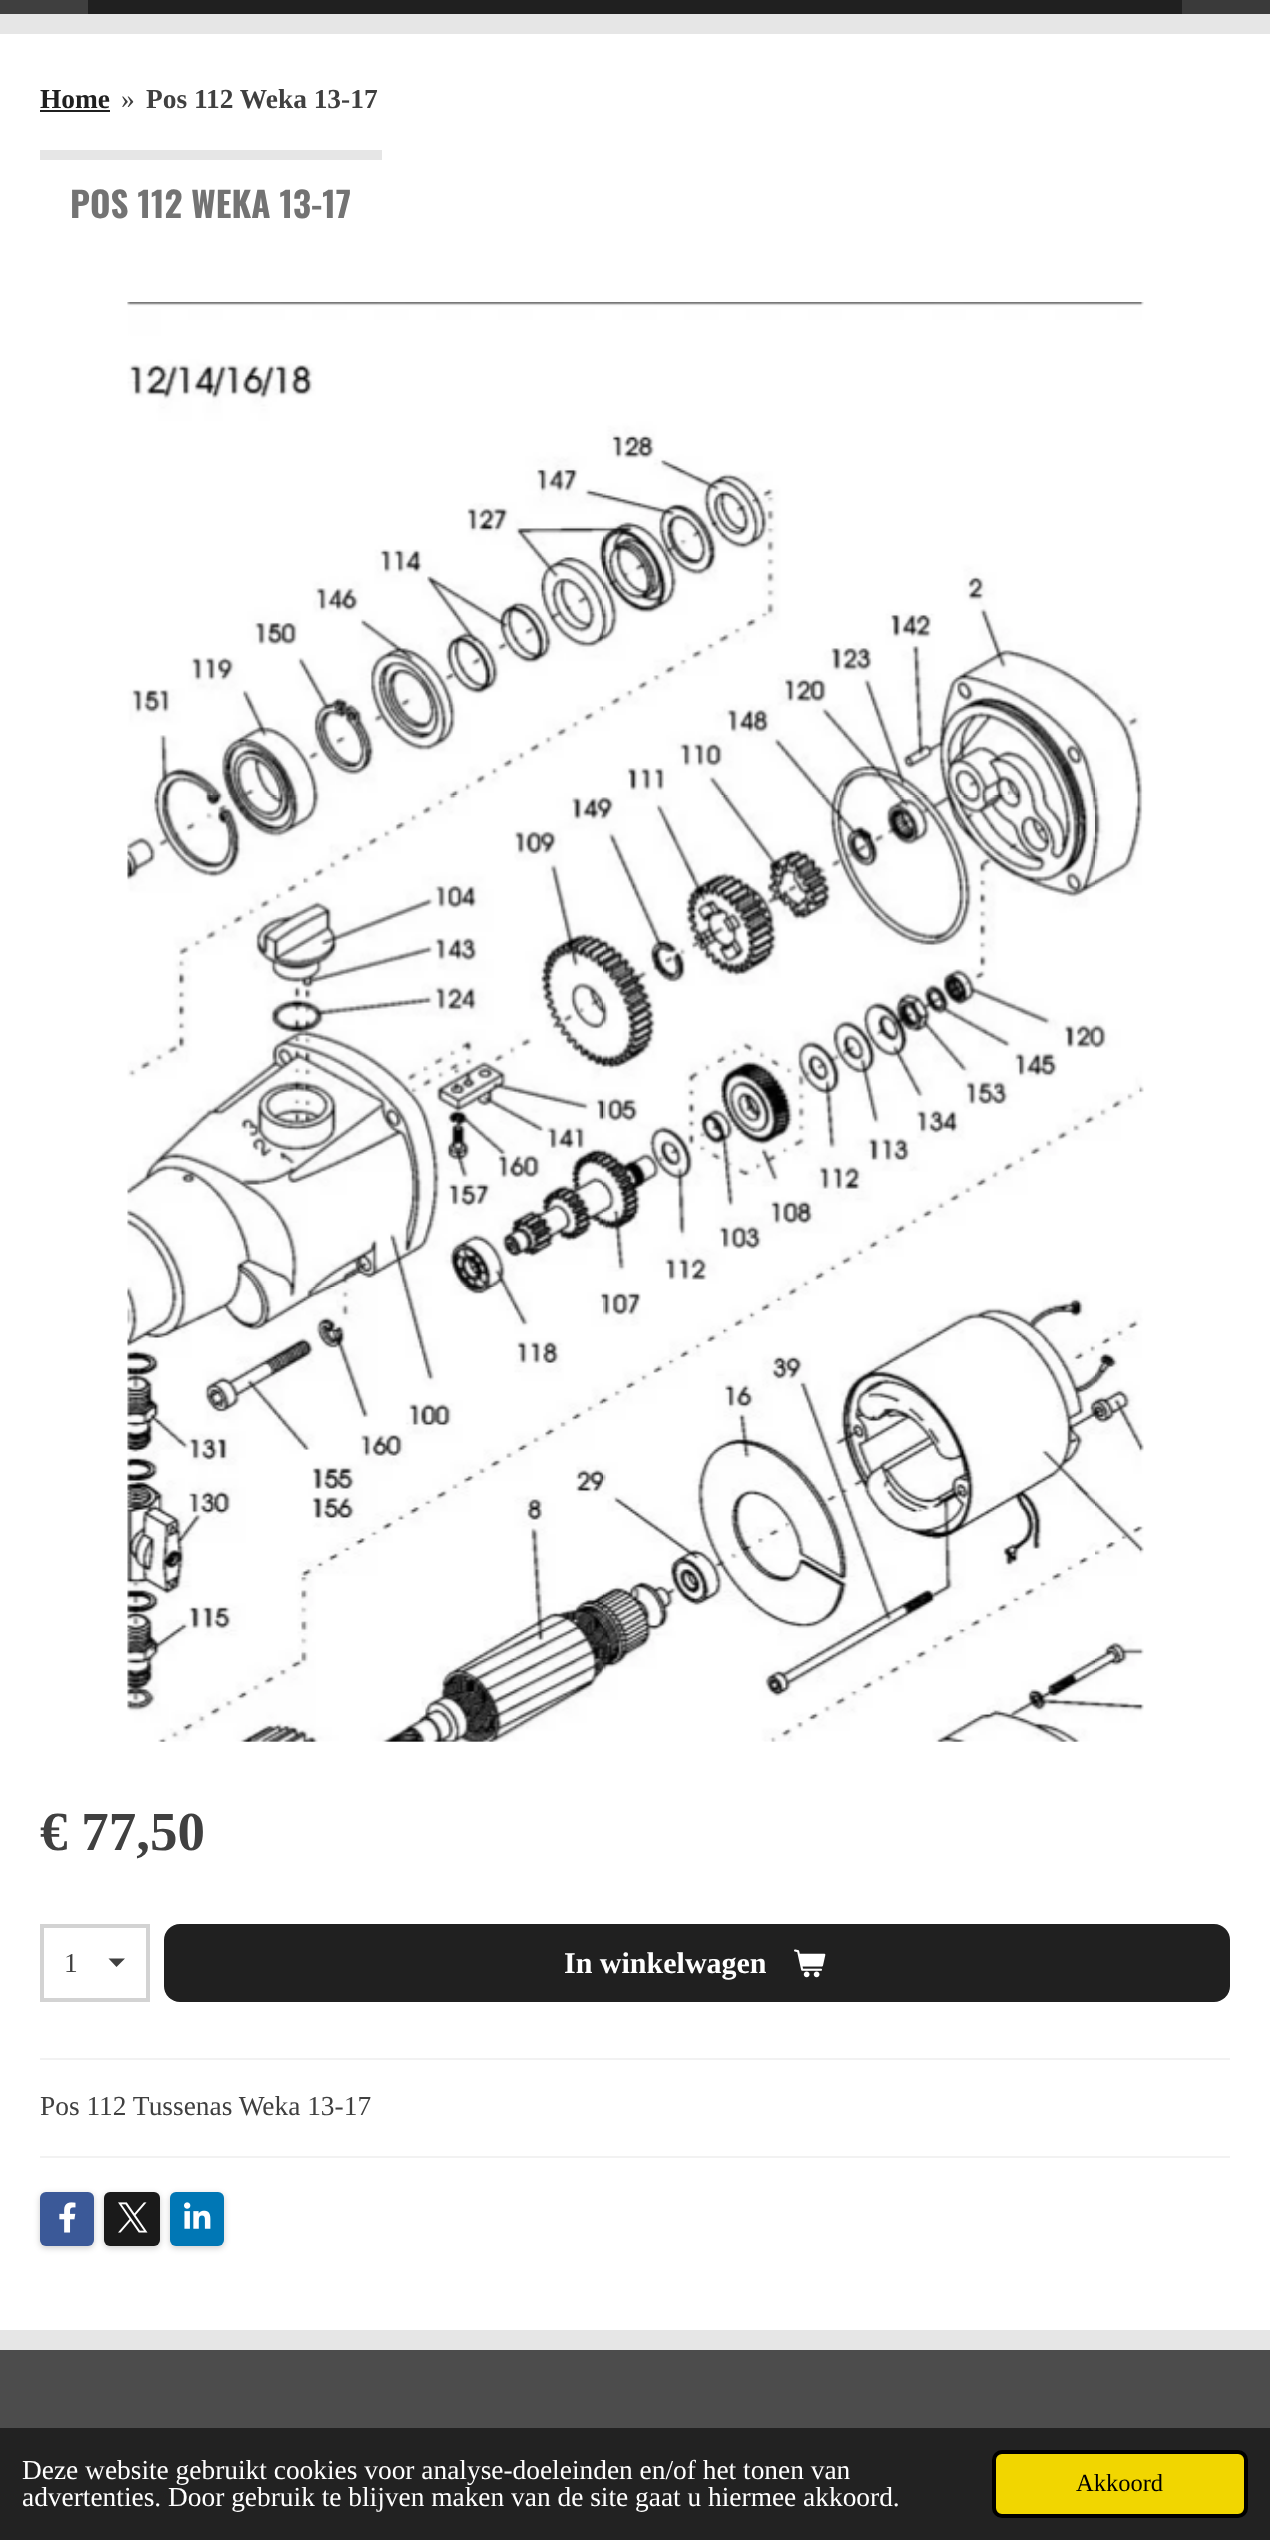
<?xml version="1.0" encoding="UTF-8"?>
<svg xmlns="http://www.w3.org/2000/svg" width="1270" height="2540">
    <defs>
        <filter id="blur1" x="-50%" y="-200%" width="200%" height="500%"><feGaussianBlur stdDeviation="3"/></filter>
    </defs>
    <rect width="100%" height="100%" fill="#4C4C4C"/>
    <rect x="0" y="0" width="88" height="14" fill="#3F3F3F"/>
    <rect x="88" y="0" width="1094" height="14" fill="#202020"/>
    <rect x="1182" y="0" width="88" height="14" fill="#3A3A3A"/>
    <rect x="0" y="14" width="1270" height="2336" fill="#E6E6E6"/>
    <rect x="0" y="34" width="1270" height="2296" fill="#FFFFFF"/>
    <text x="40" y="108" font-family="Liberation Serif" font-size="27.4" font-weight="700" fill="#202020">Home</text>
    <rect x="40" y="110" width="70" height="2" fill="#202020"/>
    <text x="121" y="108" font-family="Liberation Serif" font-size="27.4" fill="#404040">»</text>
    <text x="146" y="108" font-family="Liberation Serif" font-size="27.4" font-weight="700" fill="#404040">Pos 112 Weka 13-17</text>
    <rect x="40" y="150" width="342" height="10" fill="#E6E6E6"/>
    <text x="70" y="218" font-family="Oswald" font-size="35" font-weight="700" fill="#737373">POS 112 WEKA 13-17</text>
    <image x="127" y="302" width="1017" height="1440" href="img_01.png"/>
    <text x="40" y="1850" font-family="Liberation Serif" font-size="55" font-weight="700" fill="#404040">€ 77,50</text>
    <path d="M 116.5 1967 L 108.5 1958.5 H 125 Z" fill="#404040"/>
    <rect x="42" y="1926" width="106" height="74" fill="none" stroke="#D3D3D3" stroke-width="4"/>
    <text x="64" y="1972" font-family="Liberation Serif" font-size="27.4" fill="#404040">1</text>
    <rect x="164" y="1924" width="1066" height="78" rx="16" fill="#202020"/>
    <text x="564" y="1973" font-family="Liberation Serif" font-size="30" font-weight="700" fill="#FFFFFF">In winkelwagen</text>
    <image x="794" y="1949" width="32" height="29" href="img_02.png"/>
    <rect x="40" y="2058" width="1190" height="2" fill="#F2F2F2"/>
    <text x="40" y="2115" font-family="Liberation Serif" font-size="27.4" fill="#404040">Pos 112 Tussenas Weka 13-17</text>
    <rect x="40" y="2156" width="1190" height="2" fill="#F2F2F2"/>
    <rect x="40" y="2194" width="54" height="54" rx="6" fill="#000000" fill-opacity="0.2" filter="url(#blur1)"/>
    <rect x="40" y="2192" width="54" height="54" rx="6" fill="#3B5998"/>
    <image x="59" y="2202" width="17" height="31" href="img_03.png"/>
    <rect x="104" y="2194" width="56" height="54" rx="6" fill="#000000" fill-opacity="0.2" filter="url(#blur1)"/>
    <rect x="104" y="2192" width="56" height="54" rx="6" fill="#1A1A1A"/>
    <image x="118" y="2202" width="30" height="31" href="img_04.png"/>
    <rect x="170" y="2194" width="54" height="54" rx="6" fill="#000000" fill-opacity="0.2" filter="url(#blur1)"/>
    <rect x="170" y="2192" width="54" height="54" rx="6" fill="#0077B5"/>
    <image x="184" y="2202" width="27" height="27" href="img_05.png"/>
    <rect x="0" y="2428" width="1270" height="112" fill="#222222"/>
    <text font-family="Liberation Serif" font-size="27.4" fill="#FFFFFF">
        <tspan x="22" y="2479">Deze website gebruikt cookies voor analyse-doeleinden en/of het tonen van</tspan>
        <tspan x="22" y="2506">advertenties. Door gebruik te blijven maken van de site gaat u hiermee akkoord.</tspan>
    </text>
    <rect x="994" y="2452" width="252" height="64" rx="8" fill="#F1D600" stroke="#000000" stroke-width="4"/>
    <text x="1076" y="2491" font-family="Liberation Serif" font-size="24.5" fill="#000000">Akkoord</text>
</svg>
